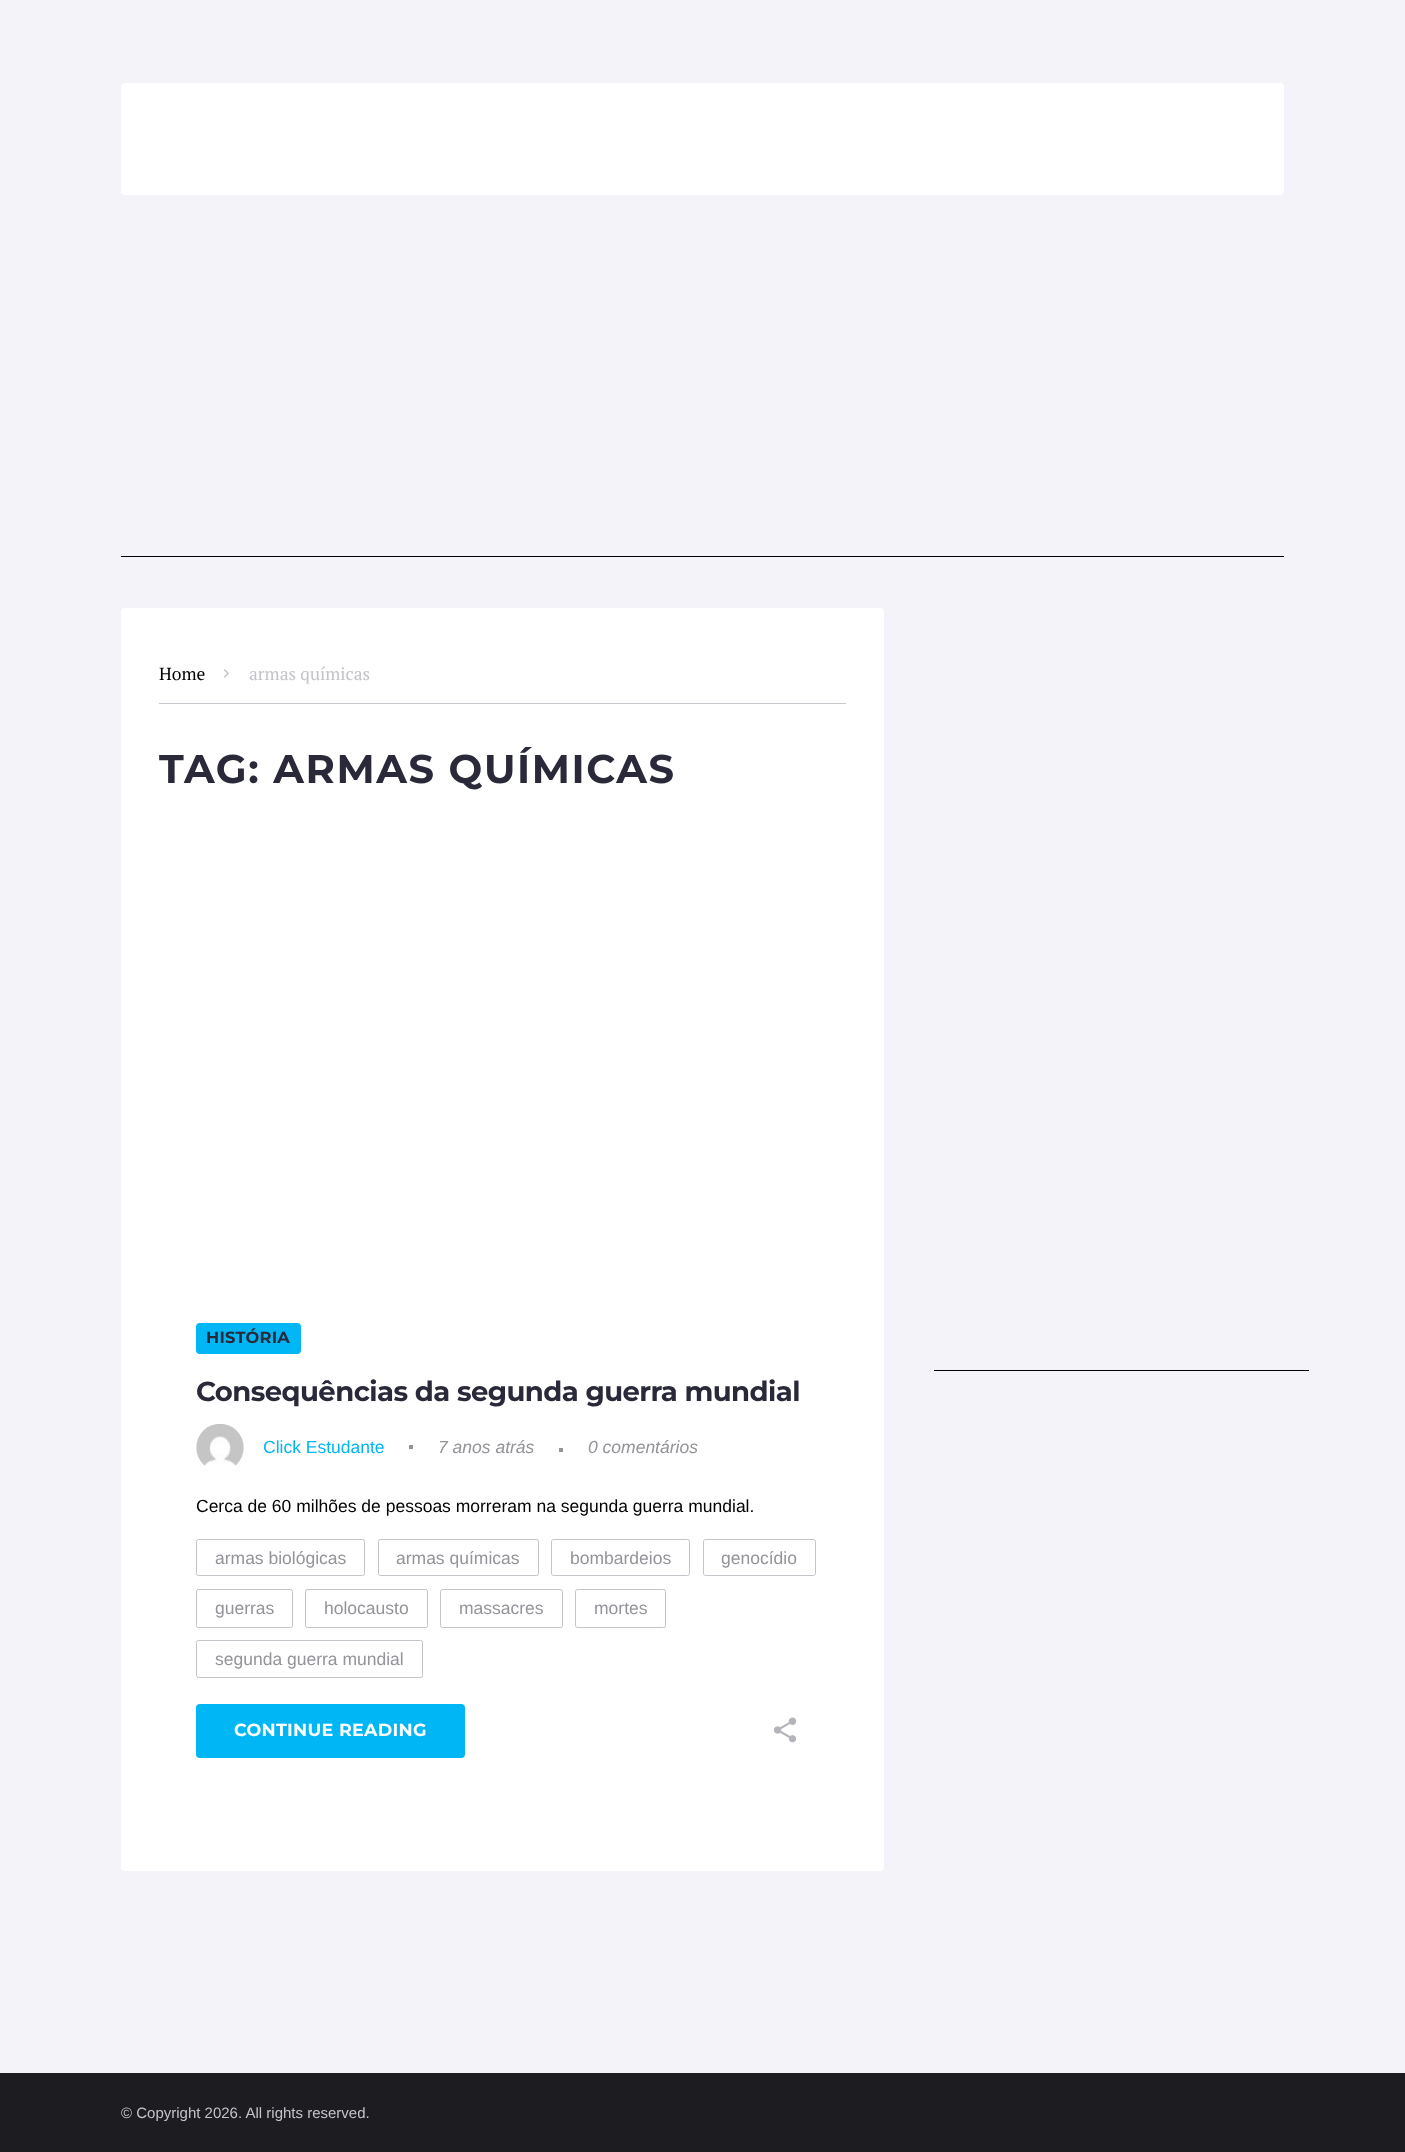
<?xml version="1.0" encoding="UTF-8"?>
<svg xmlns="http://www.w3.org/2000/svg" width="1405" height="2152">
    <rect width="100%" height="100%" fill="#F3F3F9"/>
    <rect x="121" y="83" width="1163" height="112" rx="4" fill="#FFFFFF"/>
    <rect x="121" y="556" width="1163" height="1" fill="#000000"/>
    <rect x="121" y="608" width="763" height="1263" rx="4" fill="#FFFFFF"/>
    <rect x="159" y="703" width="687" height="1" fill="#C8C8CE"/>
    <text x="159" y="680" font-family="PT Serif" font-size="17.5" fill="#000000">Home</text>
    <image x="224" y="669" width="5" height="9" href="img_01.png"/>
    <text x="249" y="680" font-family="PT Serif" font-size="17.5" fill="#C3C3C9">armas químicas</text>
    <text x="159" y="783" font-family="Montserrat" font-size="40" font-weight="700" letter-spacing="1.6" fill="#29293A">TAG: ARMAS QUÍMICAS</text>
    <rect x="196" y="1323" width="105" height="31" rx="4" fill="#00B6F5"/>
    <text x="206" y="1343" font-family="Montserrat" font-size="16.25" font-weight="700" letter-spacing="0.25" fill="#29293A">HISTÓRIA</text>
    <text x="196" y="1401" font-family="Montserrat" font-size="27.5" font-weight="700" letter-spacing="-0.55" fill="#29293A">Consequências da segunda guerra mundial</text>
    <image x="196" y="1424" width="48" height="42" href="img_02.png"/>
    <text x="263" y="1453" font-family="Liberation Sans" font-size="17.5" fill="#00B6F5">Click Estudante</text>
    <rect x="409" y="1445" width="4" height="4" fill="#939399"/>
    <text x="438" y="1453" font-family="Liberation Sans" font-size="17.5" font-style="italic" fill="#939399">7 anos atrás</text>
    <rect x="559" y="1448" width="4" height="4" fill="#939399"/>
    <text x="588" y="1453" font-family="Liberation Sans" font-size="17.5" font-style="italic" fill="#939399">0 comentários</text>
    <text x="196" y="1512" font-family="Liberation Sans" font-size="17.5" fill="#000000">Cerca de 60 milhões de pessoas morreram na segunda guerra mundial.</text>
    <rect x="196.5" y="1539.5" width="168" height="36" rx="2" fill="none" stroke="#C3C3C9"/>
    <text x="215" y="1564" font-family="Liberation Sans" font-size="17.5" fill="#939399">armas biológicas</text>
    <rect x="378.5" y="1539.5" width="160" height="36" rx="2" fill="none" stroke="#C3C3C9"/>
    <text x="396" y="1564" font-family="Liberation Sans" font-size="17.5" fill="#939399">armas químicas</text>
    <rect x="551.5" y="1539.5" width="138" height="36" rx="2" fill="none" stroke="#C3C3C9"/>
    <text x="570" y="1564" font-family="Liberation Sans" font-size="17.5" fill="#939399">bombardeios</text>
    <rect x="703.5" y="1539.5" width="112" height="36" rx="2" fill="none" stroke="#C3C3C9"/>
    <text x="721" y="1564" font-family="Liberation Sans" font-size="17.5" fill="#939399">genocídio</text>
    <rect x="196.5" y="1589.5" width="96" height="38" rx="2" fill="none" stroke="#C3C3C9"/>
    <text x="215" y="1614" font-family="Liberation Sans" font-size="17.5" fill="#939399">guerras</text>
    <rect x="305.5" y="1589.5" width="122" height="38" rx="2" fill="none" stroke="#C3C3C9"/>
    <text x="324" y="1614" font-family="Liberation Sans" font-size="17.5" fill="#939399">holocausto</text>
    <rect x="440.5" y="1589.5" width="122" height="38" rx="2" fill="none" stroke="#C3C3C9"/>
    <text x="459" y="1614" font-family="Liberation Sans" font-size="17.5" fill="#939399">massacres</text>
    <rect x="575.5" y="1589.5" width="90" height="38" rx="2" fill="none" stroke="#C3C3C9"/>
    <text x="594" y="1614" font-family="Liberation Sans" font-size="17.5" fill="#939399">mortes</text>
    <rect x="196.5" y="1640.5" width="226" height="37" rx="2" fill="none" stroke="#C3C3C9"/>
    <text x="215" y="1665" font-family="Liberation Sans" font-size="17.5" fill="#939399">segunda guerra mundial</text>
    <rect x="196" y="1704" width="269" height="54" rx="4" fill="#00B6F5"/>
    <text x="234" y="1736" font-family="Montserrat" font-size="17.5" font-weight="700" letter-spacing="0.3" fill="#FFFFFF">CONTINUE READING</text>
    <image x="773" y="1717" width="24" height="26" href="img_03.png"/>
    <rect x="934" y="1370" width="375" height="1" fill="#000000"/>
    <rect x="0" y="2073" width="1405" height="79" fill="#1C1C21"/>
    <text x="121" y="2118" font-family="Liberation Sans" font-size="15" fill="#C3C3C9">© Copyright 2026. All rights reserved.</text>
</svg>
